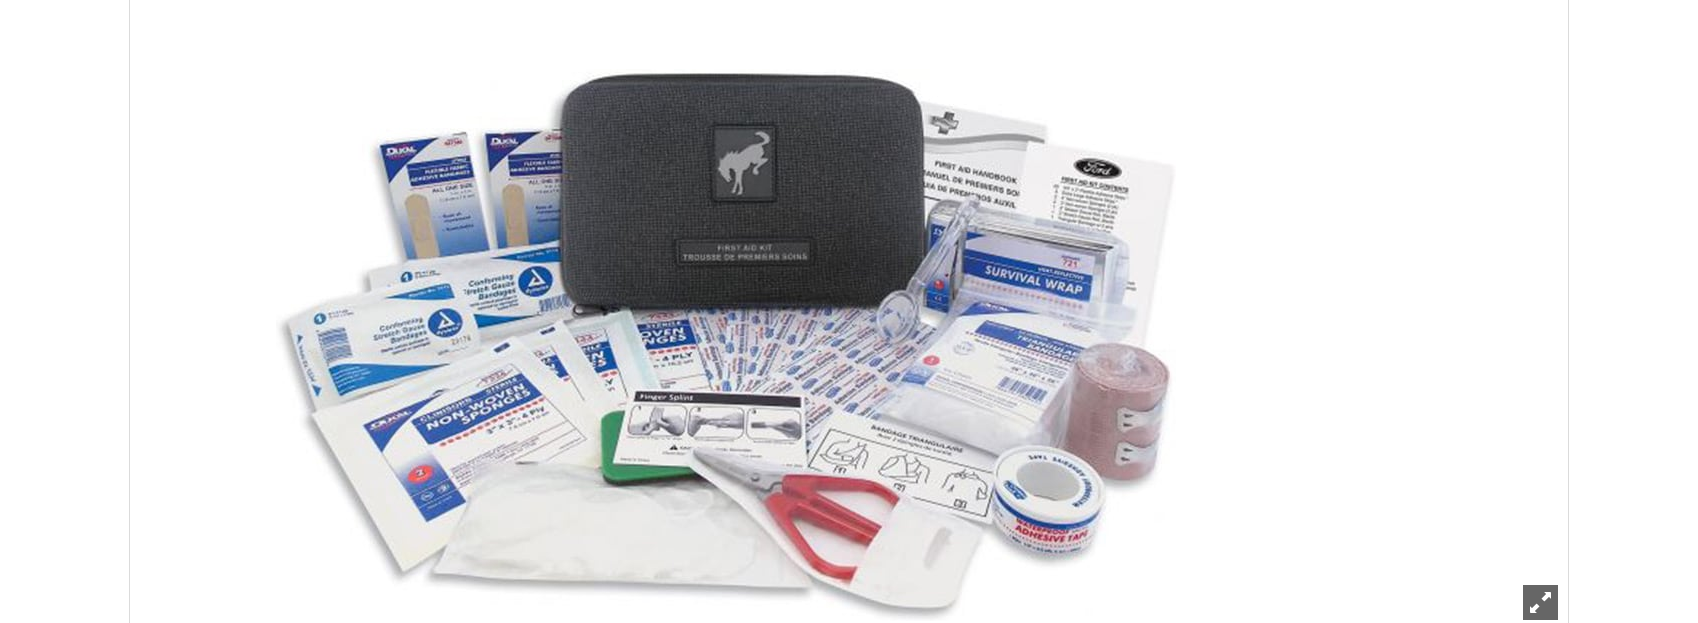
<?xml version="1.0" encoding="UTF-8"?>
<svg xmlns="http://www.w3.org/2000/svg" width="1698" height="623">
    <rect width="100%" height="100%" fill="#FFFFFF"/>
    <rect x="1568" y="0" width="1" height="623" fill="#DBDBDB"/>
    <rect x="129" y="0" width="1" height="623" fill="#DBDBDB"/>
    <image x="276" y="69" width="900" height="552" href="img_01.png"/>
    <rect x="1523" y="585" width="35" height="35" fill="#666666"/>
    <image x="1530" y="592" width="21" height="21" href="img_02.png"/>
</svg>
